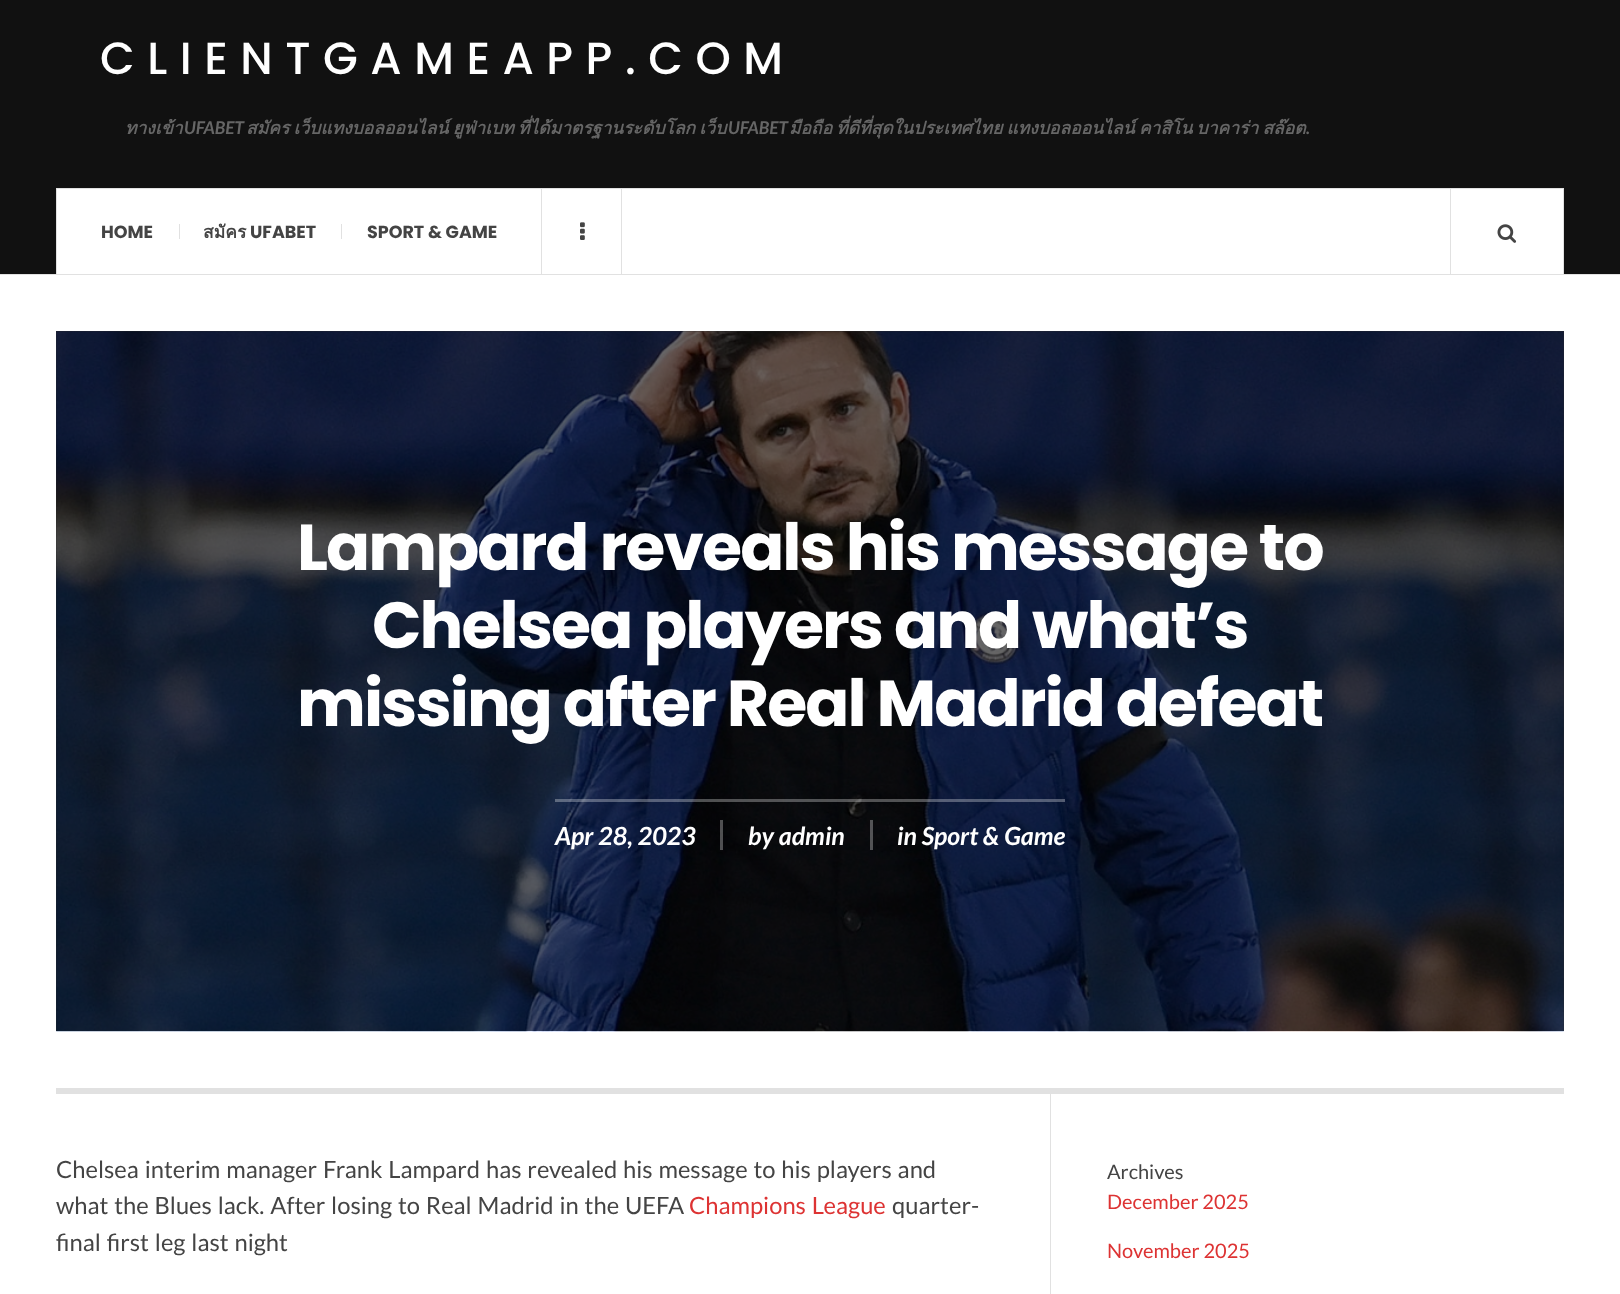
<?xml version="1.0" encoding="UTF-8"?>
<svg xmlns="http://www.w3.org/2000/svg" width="1620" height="1294">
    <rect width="100%" height="100%" fill="#FFFFFF"/>
    <rect x="0" y="0" width="1620" height="274" fill="#111111"/>
    <rect x="0" y="274" width="1620" height="1" fill="#E1E1E1"/>
    <text x="100" y="74" font-family="Poppins" font-size="45" font-weight="500" letter-spacing="12.5" fill="#FFFFFF">CLIENTGAMEAPP.COM</text>
    <text x="125" y="134" font-family="Loma" font-size="17.5" font-weight="700" font-style="italic" fill="#666666">ทางเข้า</text>
    <text x="184" y="134" font-family="Lato" font-size="17.5" font-weight="700" font-style="italic" fill="#666666">UFABET</text>
    <text x="246" y="134" word-spacing="-1.75" font-family="Loma" font-size="17.5" font-weight="700" font-style="italic" fill="#666666">สมัคร เว็บแทงบอลออนไลน์ ยูฟ่าเบท ที่ได้มาตรฐานระดับโลก เว็บ</text>
    <text x="728" y="134" font-family="Lato" font-size="17.5" font-weight="700" font-style="italic" fill="#666666">UFABET</text>
    <text x="789" y="134" word-spacing="-1.75" font-family="Loma" font-size="17.5" font-weight="700" font-style="italic" fill="#666666">มือถือ ที่ดีที่สุดในประเทศไทย แทงบอลออนไลน์ คาสิโน บาคาร่า สล๊อต</text>
    <text x="1306" y="134" font-family="Lato" font-size="17.5" font-weight="700" font-style="italic" fill="#666666">.</text>
    <rect x="56.5" y="188.5" width="1507" height="86" fill="#FFFFFF" stroke="#E1E1E1"/>
    <rect x="541" y="189" width="1" height="85" fill="#E1E1E1"/>
    <text x="101" y="238" font-family="Poppins" font-size="17.5" font-weight="700" fill="#444444">HOME</text>
    <rect x="179" y="224" width="1" height="15" fill="#E1E1E1"/>
    <text x="203" y="238" font-family="Loma" font-size="17.5" font-weight="700" fill="#444444">สมัคร</text>
    <text x="250" y="238" font-family="Poppins" font-size="17.5" font-weight="700" fill="#444444">UFABET</text>
    <rect x="341" y="224" width="1" height="15" fill="#E1E1E1"/>
    <text x="367" y="238" font-family="Poppins" font-size="17.5" font-weight="700" fill="#444444">SPORT &amp; GAME</text>
    <rect x="621" y="189" width="1" height="85" fill="#E1E1E1"/>
    <image x="580" y="222" width="5" height="18" href="img_01.png"/>
    <rect x="1450" y="189" width="1" height="85" fill="#E1E1E1"/>
    <image x="1497" y="224" width="20" height="19" href="img_02.png"/>
    <rect x="56" y="331" width="1508" height="700" fill="#292929"/>
    <image x="56" y="331" width="1508" height="701" href="img_03.png"/>
    <text x="297" y="570" font-family="Poppins" font-size="65" font-weight="700" letter-spacing="-1.95" fill="#FFFFFF">Lampard reveals his message to</text>
    <text x="372" y="648" font-family="Poppins" font-size="65" font-weight="700" letter-spacing="-1.95" fill="#FFFFFF">Chelsea players and what’s</text>
    <text x="297" y="726" font-family="Poppins" font-size="65" font-weight="700" letter-spacing="-1.95" fill="#FFFFFF">missing after Real Madrid defeat</text>
    <rect x="555" y="799" width="510" height="3" fill="#FFFFFF" fill-opacity="0.3"/>
    <rect x="720" y="820" width="3" height="30" fill="#FFFFFF" fill-opacity="0.3"/>
    <text x="555" y="845" font-family="Lato" font-size="25" font-weight="700" font-style="italic" fill="#FFFFFF">Apr 28, 2023</text>
    <rect x="870" y="820" width="3" height="30" fill="#FFFFFF" fill-opacity="0.3"/>
    <text x="748" y="845" font-family="Lato" font-size="25" font-weight="700" font-style="italic" fill="#FFFFFF">by admin</text>
    <text x="897" y="845" font-family="Lato" font-size="25" font-weight="700" font-style="italic" fill="#FFFFFF">in Sport &amp; Game</text>
    <rect x="56" y="1088" width="1508" height="6" fill="#E1E1E1"/>
    <rect x="1050" y="1094" width="1" height="200" fill="#E1E1E1"/>
    <text font-family="Lato" font-size="23.75" fill="#444444">
        <tspan x="56" y="1178" word-spacing="1.25">Chelsea interim manager Frank Lampard has revealed his message to his players and</tspan>
        <tspan x="56" y="1214" word-spacing="1.25">what the Blues lack. After losing to Real Madrid in the UEFA</tspan>
    </text>
    <text x="689" y="1214" word-spacing="1.25" font-family="Lato" font-size="23.75" fill="#DD3333">Champions League</text>
    <text x="892" y="1214" font-family="Lato" font-size="23.75" fill="#444444">quarter-</text>
    <text x="56" y="1251" word-spacing="1.25" font-family="Lato" font-size="23.75" fill="#444444">final first leg last night</text>
    <text x="1107" y="1179" font-family="Lato" font-size="20" fill="#444444">Archives</text>
    <text x="1107" y="1209" font-family="Lato" font-size="20" fill="#DD3333">December 2025</text>
    <text x="1107" y="1258" font-family="Lato" font-size="20" fill="#DD3333">November 2025</text>
</svg>
